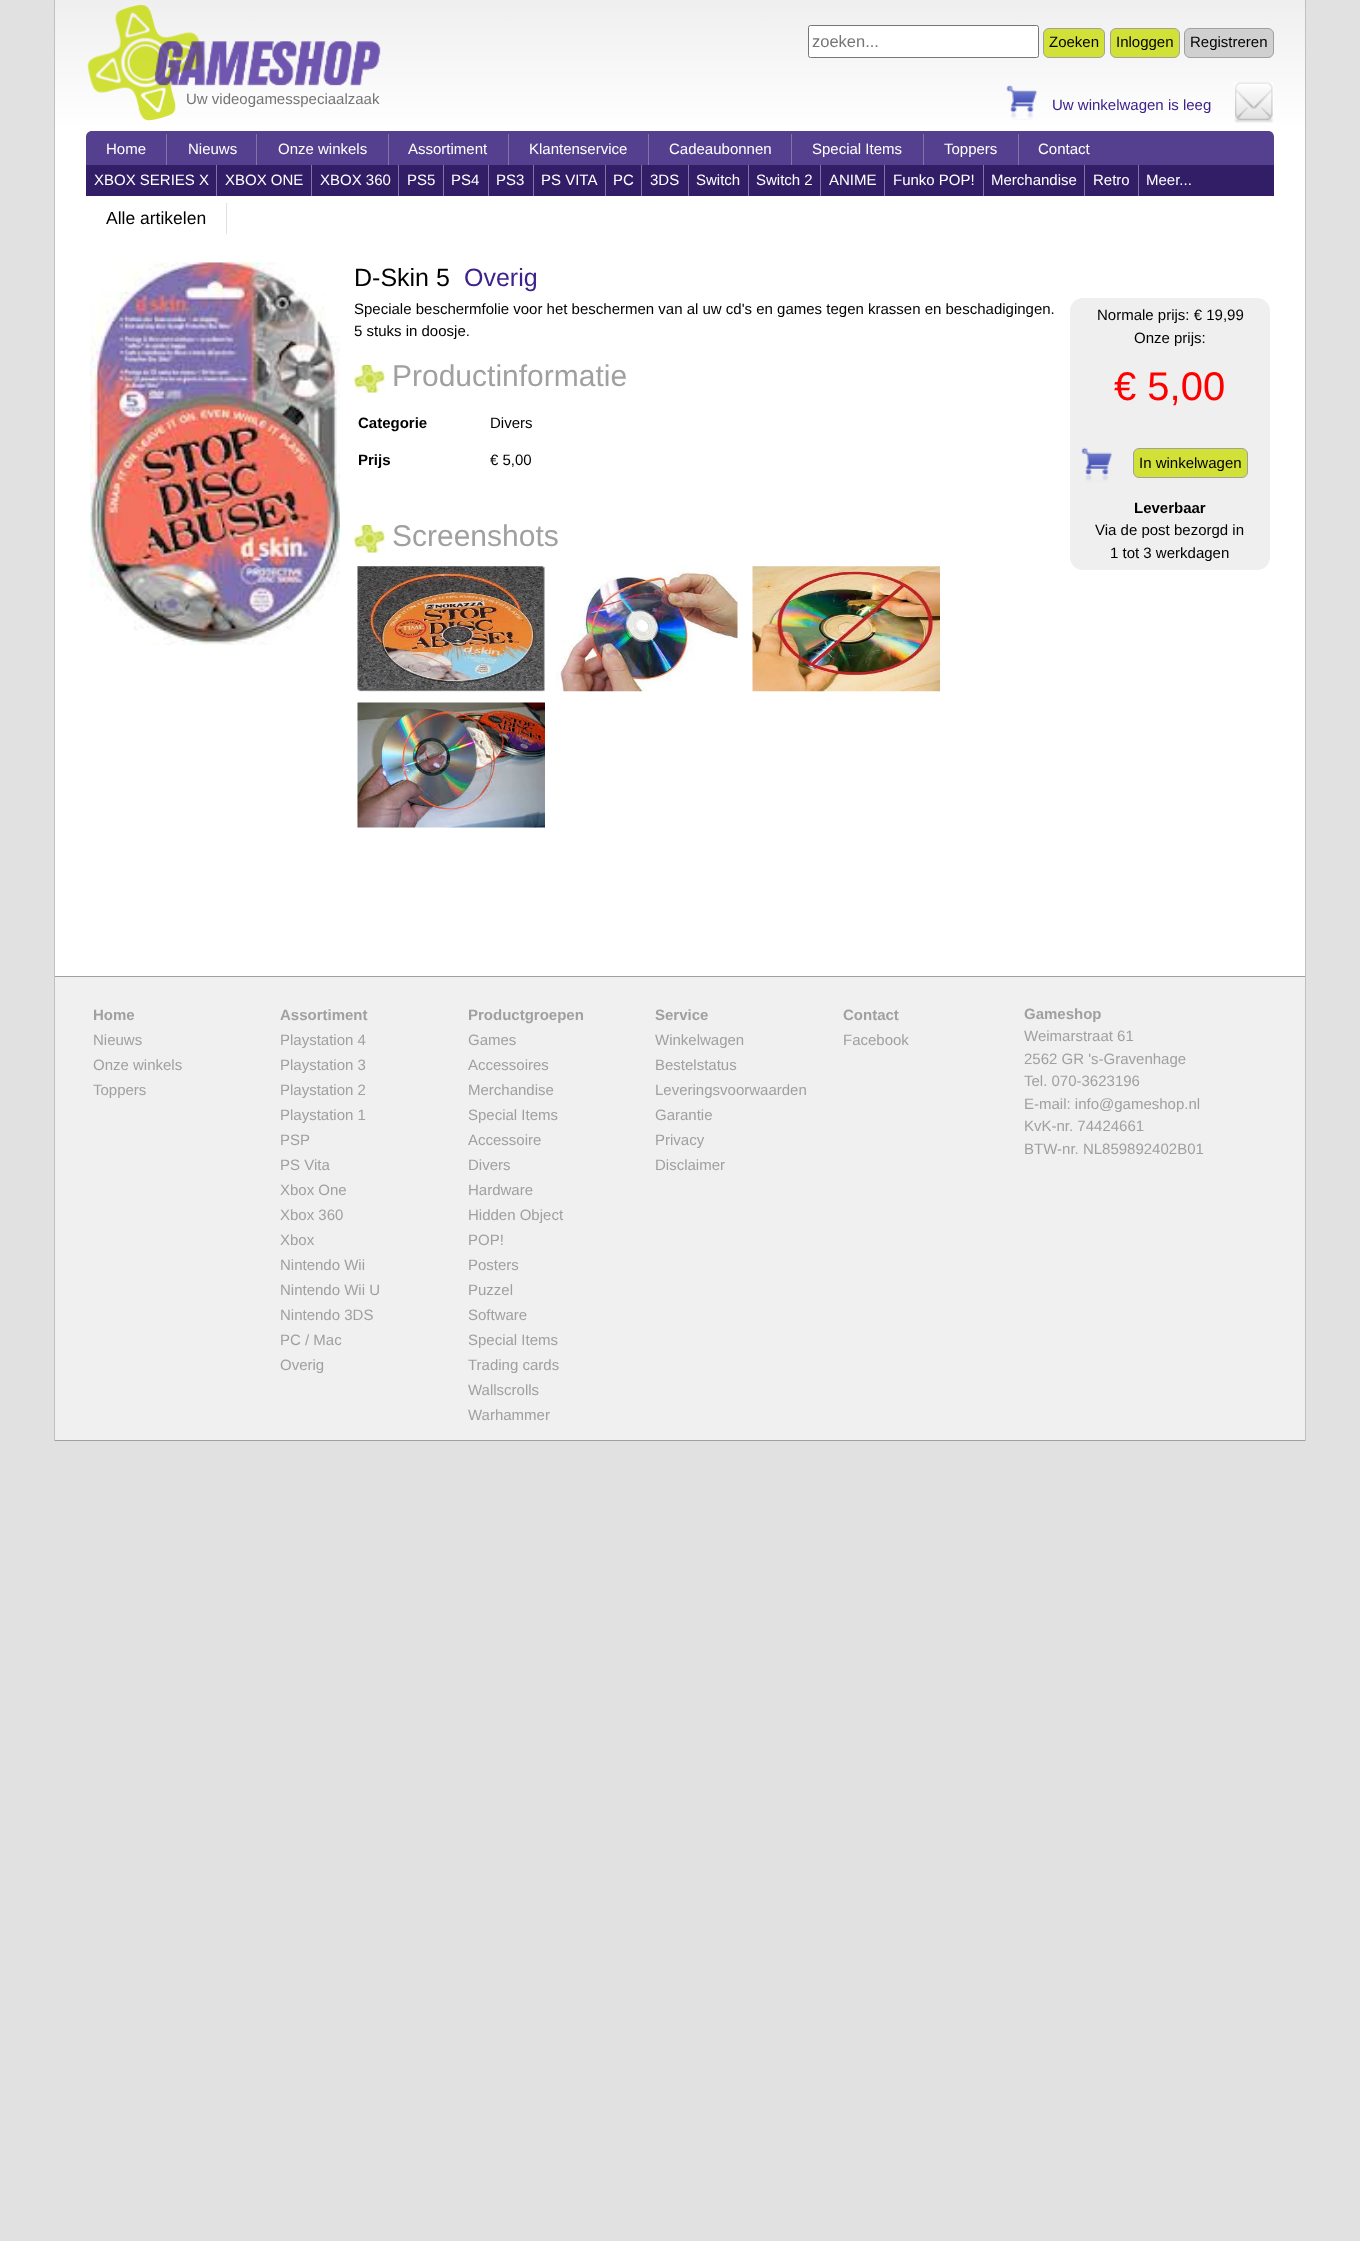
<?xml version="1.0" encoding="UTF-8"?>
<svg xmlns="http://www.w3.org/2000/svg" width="1360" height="2241">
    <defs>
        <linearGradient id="g1" gradientUnits="userSpaceOnUse" x1="680" y1="131" x2="680" y2="0"><stop offset="0" stop-color="#FFFFFF"/><stop offset="1" stop-color="#EFEFEF"/></linearGradient>
    </defs>
    <rect width="100%" height="100%" fill="#E1E1E1"/>
    <rect x="55" y="131" width="1250" height="845" fill="#FFFFFF"/>
    <rect x="1305" y="0" width="1" height="1441" fill="#C0C0C0"/>
    <rect x="54" y="0" width="1" height="1441" fill="#C0C0C0"/>
    <rect x="55" y="0" width="1250" height="131" fill="url(#g1)"/>
    <image x="87" y="4" width="117" height="117" href="img_01.png"/>
    <image x="154" y="41" width="227" height="45" href="img_02.png"/>
    <text x="186" y="104" font-family="Liberation Sans" font-size="15" fill="#757575">Uw videogamesspeciaalzaak</text>
    <rect x="808.5" y="25.5" width="230" height="32" rx="2" fill="#FFFFFF" stroke="#767676"/>
    <text x="812" y="47" font-family="Liberation Sans" font-size="16.5" fill="#757575">zoeken...</text>
    <rect x="1043.5" y="28.5" width="61" height="29" rx="5.5" fill="#D2E137" stroke="#A0A0A0"/>
    <text x="1049" y="47" font-family="Liberation Sans" font-size="15" fill="#000000">Zoeken</text>
    <rect x="1110.5" y="28.5" width="69" height="29" rx="5.5" fill="#D2E137" stroke="#A0A0A0"/>
    <text x="1116" y="47" font-family="Liberation Sans" font-size="15" fill="#000000">Inloggen</text>
    <rect x="1184.5" y="28.5" width="89" height="29" rx="5.5" fill="#D0D0D0" stroke="#A0A0A0"/>
    <text x="1190" y="47" font-family="Liberation Sans" font-size="15" fill="#000000">Registreren</text>
    <image x="1006" y="85" width="31" height="35" href="img_03.png"/>
    <text x="1052" y="110" font-family="Liberation Sans" font-size="15" fill="#3D218C">Uw winkelwagen is leeg</text>
    <image x="1234" y="82" width="40" height="41" href="img_04.png"/>
    <path d="M 92 131 H 1268 C 1271.5 131 1274 133.5 1274 137 V 165 H 86 V 137 C 86 133.5 88.5 131 92 131 Z" fill="#55408F"/>
    <rect x="166" y="134" width="1" height="31" fill="#8073A5"/>
    <text x="106" y="154" font-family="Liberation Sans" font-size="15" fill="#FFFFFF">Home</text>
    <rect x="256" y="134" width="1" height="31" fill="#8073A5"/>
    <text x="188" y="154" font-family="Liberation Sans" font-size="15" fill="#FFFFFF">Nieuws</text>
    <rect x="388" y="134" width="1" height="31" fill="#8073A5"/>
    <text x="278" y="154" font-family="Liberation Sans" font-size="15" fill="#FFFFFF">Onze winkels</text>
    <rect x="508" y="134" width="1" height="31" fill="#8073A5"/>
    <text x="408" y="154" font-family="Liberation Sans" font-size="15" fill="#FFFFFF">Assortiment</text>
    <rect x="648" y="134" width="1" height="31" fill="#8073A5"/>
    <text x="529" y="154" font-family="Liberation Sans" font-size="15" fill="#FFFFFF">Klantenservice</text>
    <rect x="791" y="134" width="1" height="31" fill="#8073A5"/>
    <text x="669" y="154" font-family="Liberation Sans" font-size="15" fill="#FFFFFF">Cadeaubonnen</text>
    <rect x="923" y="134" width="1" height="31" fill="#8073A5"/>
    <text x="812" y="154" font-family="Liberation Sans" font-size="15" fill="#FFFFFF">Special Items</text>
    <rect x="1018" y="134" width="1" height="31" fill="#8073A5"/>
    <text x="944" y="154" font-family="Liberation Sans" font-size="15" fill="#FFFFFF">Toppers</text>
    <text x="1038" y="154" font-family="Liberation Sans" font-size="15" fill="#FFFFFF">Contact</text>
    <rect x="86" y="165" width="1188" height="31" fill="#311E67"/>
    <rect x="216" y="165" width="1" height="31" fill="#8073A5"/>
    <text x="94" y="185" font-family="Liberation Sans" font-size="15" fill="#FFFFFF">XBOX SERIES X</text>
    <rect x="311" y="165" width="1" height="31" fill="#8073A5"/>
    <text x="225" y="185" font-family="Liberation Sans" font-size="15" fill="#FFFFFF">XBOX ONE</text>
    <rect x="398" y="165" width="1" height="31" fill="#8073A5"/>
    <text x="320" y="185" font-family="Liberation Sans" font-size="15" fill="#FFFFFF">XBOX 360</text>
    <rect x="443" y="165" width="1" height="31" fill="#8073A5"/>
    <text x="407" y="185" font-family="Liberation Sans" font-size="15" fill="#FFFFFF">PS5</text>
    <rect x="488" y="165" width="1" height="31" fill="#8073A5"/>
    <text x="451" y="185" font-family="Liberation Sans" font-size="15" fill="#FFFFFF">PS4</text>
    <rect x="533" y="165" width="1" height="31" fill="#8073A5"/>
    <text x="496" y="185" font-family="Liberation Sans" font-size="15" fill="#FFFFFF">PS3</text>
    <rect x="605" y="165" width="1" height="31" fill="#8073A5"/>
    <text x="541" y="185" font-family="Liberation Sans" font-size="15" fill="#FFFFFF">PS VITA</text>
    <rect x="641" y="165" width="1" height="31" fill="#8073A5"/>
    <text x="613" y="185" font-family="Liberation Sans" font-size="15" fill="#FFFFFF">PC</text>
    <rect x="688" y="165" width="1" height="31" fill="#8073A5"/>
    <text x="650" y="185" font-family="Liberation Sans" font-size="15" fill="#FFFFFF">3DS</text>
    <rect x="748" y="165" width="1" height="31" fill="#8073A5"/>
    <text x="696" y="185" font-family="Liberation Sans" font-size="15" fill="#FFFFFF">Switch</text>
    <rect x="820" y="165" width="1" height="31" fill="#8073A5"/>
    <text x="756" y="185" font-family="Liberation Sans" font-size="15" fill="#FFFFFF">Switch 2</text>
    <rect x="884" y="165" width="1" height="31" fill="#8073A5"/>
    <text x="829" y="185" font-family="Liberation Sans" font-size="15" fill="#FFFFFF">ANIME</text>
    <rect x="983" y="165" width="1" height="31" fill="#8073A5"/>
    <text x="893" y="185" font-family="Liberation Sans" font-size="15" fill="#FFFFFF">Funko POP!</text>
    <rect x="1084" y="165" width="1" height="31" fill="#8073A5"/>
    <text x="991" y="185" font-family="Liberation Sans" font-size="15" fill="#FFFFFF">Merchandise</text>
    <rect x="1138" y="165" width="1" height="31" fill="#8073A5"/>
    <text x="1093" y="185" font-family="Liberation Sans" font-size="15" fill="#FFFFFF">Retro</text>
    <text x="1146" y="185" font-family="Liberation Sans" font-size="15" fill="#FFFFFF">Meer...</text>
    <rect x="226" y="203" width="1" height="31" fill="#E0E0E0"/>
    <text x="106" y="224" font-family="Liberation Sans" font-size="17.5" fill="#000000">Alle artikelen</text>
    <image x="90" y="262" width="250" height="383" href="img_05.png"/>
    <text x="354" y="286" font-family="Liberation Sans" font-size="25" fill="#000000">D-Skin 5</text>
    <text x="464" y="286" font-family="Liberation Sans" font-size="25" fill="#3D218C">Overig</text>
    <text font-family="Liberation Sans" font-size="15" fill="#000000">
        <tspan x="354" y="314">Speciale beschermfolie voor het beschermen van al uw cd's en games tegen krassen en beschadigingen.</tspan>
        <tspan x="354" y="336">5 stuks in doosje.</tspan>
    </text>
    <image x="353" y="365" width="32" height="28" href="img_06.png"/>
    <text x="392" y="386" font-family="Liberation Sans" font-size="30" fill="#A0A0A0">Productinformatie</text>
    <text x="358" y="428" font-family="Liberation Sans" font-size="15" font-weight="700" fill="#000000">Categorie</text>
    <text x="490" y="428" font-family="Liberation Sans" font-size="15" fill="#000000">Divers</text>
    <text x="358" y="465" font-family="Liberation Sans" font-size="15" font-weight="700" fill="#000000">Prijs</text>
    <text x="490" y="465" font-family="Liberation Sans" font-size="15" fill="#000000">€ 5,00</text>
    <image x="353" y="525" width="32" height="28" href="img_06.png"/>
    <text x="392" y="546" font-family="Liberation Sans" font-size="30" fill="#A0A0A0">Screenshots</text>
    <image x="357" y="566" width="188" height="126" href="img_07.png"/>
    <image x="556" y="566" width="182" height="126" href="img_08.png"/>
    <image x="752" y="566" width="188" height="126" href="img_09.png"/>
    <image x="357" y="702" width="188" height="126" href="img_10.png"/>
    <rect x="1070" y="298" width="200" height="272" rx="13" fill="#EFEFEF"/>
    <text x="1097" y="320" font-family="Liberation Sans" font-size="15" fill="#000000">Normale prijs: € 19,99</text>
    <text x="1134" y="343" font-family="Liberation Sans" font-size="15" fill="#000000">Onze prijs:</text>
    <text x="1114" y="400" font-family="Liberation Sans" font-size="40" fill="#FF0000">€ 5,00</text>
    <image x="1081" y="447" width="32" height="35" href="img_11.png"/>
    <rect x="1133.5" y="448.5" width="114" height="29" rx="5.5" fill="#D2E137" stroke="#A0A0A0"/>
    <text x="1139" y="468" font-family="Liberation Sans" font-size="15" fill="#000000">In winkelwagen</text>
    <text x="1134" y="513" font-family="Liberation Sans" font-size="15" font-weight="700" fill="#000000">Leverbaar</text>
    <text x="1095" y="535" font-family="Liberation Sans" font-size="15" fill="#000000">Via de post bezorgd in</text>
    <text x="1110" y="558" font-family="Liberation Sans" font-size="15" fill="#000000">1 tot 3 werkdagen</text>
    <rect x="55" y="977" width="1250" height="463" fill="#F0F0F0"/>
    <rect x="55" y="976" width="1250" height="1" fill="#A0A0A0"/>
    <rect x="55" y="1440" width="1250" height="1" fill="#A0A0A0"/>
    <text x="93" y="1020" font-family="Liberation Sans" font-size="15" font-weight="700" fill="#A0A0A0">Home</text>
    <text font-family="Liberation Sans" font-size="15" fill="#A0A0A0">
        <tspan x="93" y="1045">Nieuws</tspan>
        <tspan x="93" y="1070">Onze winkels</tspan>
        <tspan x="93" y="1095">Toppers</tspan>
    </text>
    <text x="280" y="1020" font-family="Liberation Sans" font-size="15" font-weight="700" fill="#A0A0A0">Assortiment</text>
    <text font-family="Liberation Sans" font-size="15" fill="#A0A0A0">
        <tspan x="280" y="1045">Playstation 4</tspan>
        <tspan x="280" y="1070">Playstation 3</tspan>
        <tspan x="280" y="1095">Playstation 2</tspan>
        <tspan x="280" y="1120">Playstation 1</tspan>
        <tspan x="280" y="1145">PSP</tspan>
        <tspan x="280" y="1170">PS Vita</tspan>
        <tspan x="280" y="1195">Xbox One</tspan>
        <tspan x="280" y="1220">Xbox 360</tspan>
        <tspan x="280" y="1245">Xbox</tspan>
        <tspan x="280" y="1270">Nintendo Wii</tspan>
        <tspan x="280" y="1295">Nintendo Wii U</tspan>
        <tspan x="280" y="1320">Nintendo 3DS</tspan>
        <tspan x="280" y="1345">PC / Mac</tspan>
        <tspan x="280" y="1370">Overig</tspan>
    </text>
    <text x="468" y="1020" font-family="Liberation Sans" font-size="15" font-weight="700" fill="#A0A0A0">Productgroepen</text>
    <text font-family="Liberation Sans" font-size="15" fill="#A0A0A0">
        <tspan x="468" y="1045">Games</tspan>
        <tspan x="468" y="1070">Accessoires</tspan>
        <tspan x="468" y="1095">Merchandise</tspan>
        <tspan x="468" y="1120">Special Items</tspan>
        <tspan x="468" y="1145">Accessoire</tspan>
        <tspan x="468" y="1170">Divers</tspan>
        <tspan x="468" y="1195">Hardware</tspan>
        <tspan x="468" y="1220">Hidden Object</tspan>
        <tspan x="468" y="1245">POP!</tspan>
        <tspan x="468" y="1270">Posters</tspan>
        <tspan x="468" y="1295">Puzzel</tspan>
        <tspan x="468" y="1320">Software</tspan>
        <tspan x="468" y="1345">Special Items</tspan>
        <tspan x="468" y="1370">Trading cards</tspan>
        <tspan x="468" y="1395">Wallscrolls</tspan>
        <tspan x="468" y="1420">Warhammer</tspan>
    </text>
    <text x="655" y="1020" font-family="Liberation Sans" font-size="15" font-weight="700" fill="#A0A0A0">Service</text>
    <text font-family="Liberation Sans" font-size="15" fill="#A0A0A0">
        <tspan x="655" y="1045">Winkelwagen</tspan>
        <tspan x="655" y="1070">Bestelstatus</tspan>
        <tspan x="655" y="1095">Leveringsvoorwaarden</tspan>
        <tspan x="655" y="1120">Garantie</tspan>
        <tspan x="655" y="1145">Privacy</tspan>
        <tspan x="655" y="1170">Disclaimer</tspan>
    </text>
    <text x="843" y="1020" font-family="Liberation Sans" font-size="15" font-weight="700" fill="#A0A0A0">Contact</text>
    <text x="843" y="1045" font-family="Liberation Sans" font-size="15" fill="#A0A0A0">Facebook</text>
    <text x="1024" y="1019" font-family="Liberation Sans" font-size="15" font-weight="700" fill="#A0A0A0">Gameshop</text>
    <text font-family="Liberation Sans" font-size="15" fill="#A0A0A0">
        <tspan x="1024" y="1041">Weimarstraat 61</tspan>
        <tspan x="1024" y="1064">2562 GR 's-Gravenhage</tspan>
        <tspan x="1024" y="1086">Tel. 070-3623196</tspan>
        <tspan x="1024" y="1109">E-mail: info@gameshop.nl</tspan>
        <tspan x="1024" y="1131">KvK-nr. 74424661</tspan>
        <tspan x="1024" y="1154">BTW-nr. NL859892402B01</tspan>
    </text>
</svg>
